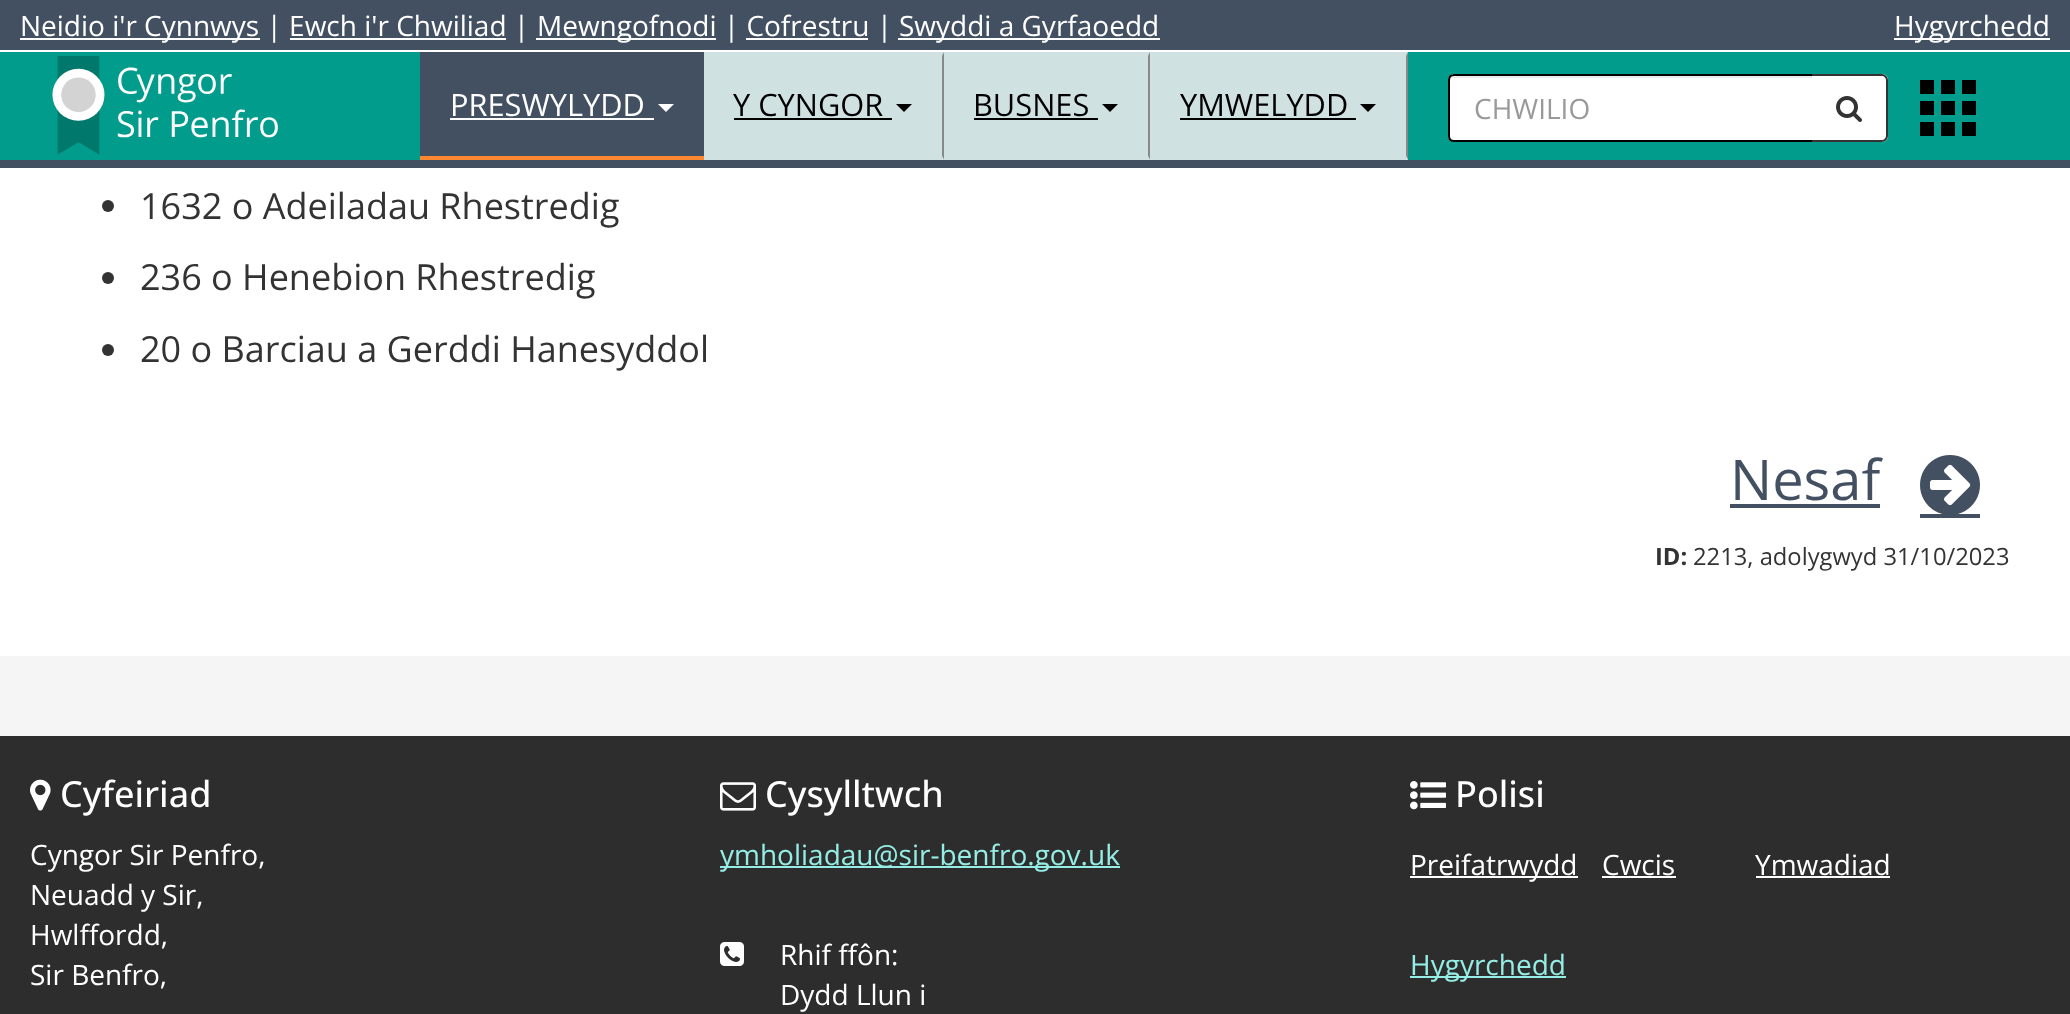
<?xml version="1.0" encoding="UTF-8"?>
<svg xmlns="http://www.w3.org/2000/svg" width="2070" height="1014">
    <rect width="100%" height="100%" fill="#FFFFFF"/>
    <rect x="0" y="52" width="2070" height="108" fill="#019C8C"/>
    <rect x="0" y="160" width="2070" height="8" fill="#435061"/>
    <rect x="0" y="0" width="2070" height="50" fill="#435061"/>
    <rect x="20" y="38" width="240" height="2" fill="#FFFFFF"/>
    <text x="20" y="36" font-family="Open Sans" font-size="28" fill="#FFFFFF">Neidio i'r Cynnwys | Ewch i'r Chwiliad |</text>
    <rect x="536" y="38" width="180" height="2" fill="#FFFFFF"/>
    <text x="537" y="36" font-family="Open Sans" font-size="28" fill="#FFFFFF">Mewngofnodi | Cofrestru |</text>
    <rect x="898" y="38" width="262" height="2" fill="#FFFFFF"/>
    <text x="899" y="36" font-family="Open Sans" font-size="28" fill="#FFFFFF">Swyddi a Gyrfaoedd</text>
    <rect x="1894" y="38" width="156" height="2" fill="#FFFFFF"/>
    <text x="1894" y="36" font-family="Open Sans" font-size="28" fill="#FFFFFF">Hygyrchedd</text>
    <rect x="290" y="38" width="216" height="2" fill="#FFFFFF"/>
    <rect x="746" y="38" width="122" height="2" fill="#FFFFFF"/>
    <image x="52" y="56" width="226" height="99" href="img_01.png"/>
    <rect x="420" y="52" width="284" height="104" fill="#435061"/>
    <rect x="420" y="156" width="284" height="4" fill="#FF872F"/>
    <text x="450" y="116" font-family="Open Sans" font-size="30.75" fill="#FFFFFF">PRESWYLYDD</text>
    <rect x="450" y="118" width="204" height="2" fill="#FFFFFF"/>
    <path d="M 658 104 H 674 L 666 112 Z" fill="#FFFFFF"/>
    <rect x="704" y="52" width="704" height="108" fill="#D0E1E1"/>
    <path d="M 944 52 V 160 L 942 156 V 56 Z" fill="#888888"/>
    <path d="M 944 160 H 704 V 156 H 942 Z" fill="#D0E1E1"/>
    <text x="733" y="116" font-family="Open Sans" font-size="30.75" fill="#000000">Y CYNGOR</text>
    <rect x="734" y="118" width="158" height="2" fill="#000000"/>
    <path d="M 896 104 H 912 L 904 112 Z" fill="#000000"/>
    <path d="M 1150 52 V 160 L 1148 156 V 56 Z" fill="#888888"/>
    <path d="M 1150 160 H 944 V 156 H 1148 Z" fill="#D0E1E1"/>
    <text x="973" y="116" font-family="Open Sans" font-size="30.75" fill="#000000">BUSNES</text>
    <rect x="974" y="118" width="124" height="2" fill="#000000"/>
    <path d="M 1102 104 H 1118 L 1110 112 Z" fill="#000000"/>
    <path d="M 1408 52 V 160 L 1406 156 V 56 Z" fill="#888888"/>
    <path d="M 1408 160 H 1150 V 156 H 1406 Z" fill="#D0E1E1"/>
    <text x="1180" y="116" font-family="Open Sans" font-size="30.75" fill="#000000">YMWELYDD</text>
    <rect x="1180" y="118" width="176" height="2" fill="#000000"/>
    <path d="M 1360 104 H 1376 L 1368 112 Z" fill="#000000"/>
    <path d="M 1454 74 H 1814 V 142 H 1454 C 1450.5 142 1448 139.5 1448 136 V 80 C 1448 76.5 1450.5 74 1454 74 Z" fill="#FFFFFF"/>
    <path d="M 1454 78 H 1812 V 76 H 1454 C 1452 76 1450 78 1450 80 V 82 C 1450 80 1452 78 1454 78 Z" fill="#ECECEC"/>
    <path d="M 1454 75 H 1813 V 141 H 1454 C 1451 141 1449 139 1449 136 V 80 C 1449 77 1451 75 1454 75 Z" fill="none" stroke="#000000" stroke-width="2"/>
    <text x="1474" y="119" font-family="Open Sans" font-size="28" fill="#999999">CHWILIO</text>
    <path d="M 1812 74 H 1882 C 1885.5 74 1888 76.5 1888 80 V 136 C 1888 139.5 1885.5 142 1882 142 H 1812 Z" fill="#FFFFFF"/>
    <path d="M 1812 74 H 1882 C 1885 74 1888 77 1888 80 V 136 C 1888 139 1885 142 1882 142 H 1812 Z M 1812 76 H 1882 C 1884 76 1886 78 1886 80 V 136 C 1886 138 1884 140 1882 140 H 1812 Z" fill="#333333" fill-rule="evenodd"/>
    <image x="1836" y="96" width="26" height="26" href="img_02.png"/>
    <image x="1920" y="80" width="56" height="56" href="img_03.png"/>
    <circle cx="108" cy="206" r="6" fill="#333333"/>
    <text x="140" y="219" font-family="Open Sans" font-size="36" fill="#333333">1632 o Adeiladau Rhestredig</text>
    <circle cx="108" cy="278" r="6" fill="#333333"/>
    <text x="140" y="290" font-family="Open Sans" font-size="36" fill="#333333">236 o Henebion Rhestredig</text>
    <circle cx="108" cy="350" r="6" fill="#333333"/>
    <text x="140" y="362" font-family="Open Sans" font-size="36" fill="#333333">20 o Barciau a Gerddi Hanesyddol</text>
    <text x="1730" y="500" font-family="Open Sans" font-size="56" fill="#435061">Nesaf</text>
    <rect x="1730" y="504" width="150" height="4" fill="#435061"/>
    <rect x="1920" y="514" width="60" height="4" fill="#435061"/>
    <image x="1920" y="455" width="60" height="59" href="img_04.png"/>
    <text x="1655" y="565" font-family="Open Sans" font-size="23.75" font-weight="700" fill="#333333">ID:</text>
    <text x="1693" y="565" font-family="Open Sans" font-size="23.75" fill="#333333">2213, adolygwyd 31/10/2023</text>
    <rect x="0" y="656" width="2070" height="80" fill="#F5F5F5"/>
    <rect x="0" y="736" width="2070" height="278" fill="#2D2D2D"/>
    <image x="30" y="779" width="21" height="32" href="img_05.png"/>
    <text x="60" y="807" font-family="Open Sans" font-size="36" font-weight="500" fill="#FFFFFF">Cyfeiriad</text>
    <text font-family="Open Sans" font-size="28" fill="#FFFFFF">
        <tspan x="30" y="865">Cyngor Sir Penfro,</tspan>
        <tspan x="30" y="905">Neuadd y Sir,</tspan>
        <tspan x="30" y="945">Hwlffordd,</tspan>
        <tspan x="30" y="985">Sir Benfro,</tspan>
    </text>
    <image x="720" y="782" width="36" height="29" href="img_06.png"/>
    <text x="765" y="807" font-family="Open Sans" font-size="36" font-weight="500" fill="#FFFFFF">Cysylltwch</text>
    <rect x="720" y="866" width="400" height="2" fill="#95EEE5"/>
    <text x="720" y="865" font-family="Open Sans" font-size="28" fill="#95EEE5">ymholiadau@sir-benfro.gov.uk</text>
    <image x="720" y="942" width="24" height="24" href="img_07.png"/>
    <text font-family="Open Sans" font-size="28" fill="#FFFFFF">
        <tspan x="780" y="965">Rhif ffôn:</tspan>
        <tspan x="780" y="1005">Dydd Llun i</tspan>
    </text>
    <image x="1410" y="781" width="36" height="29" href="img_08.png"/>
    <text x="1455" y="807" font-family="Open Sans" font-size="36" font-weight="500" fill="#FFFFFF">Polisi</text>
    <rect x="1410" y="876" width="168" height="2" fill="#FFFFFF"/>
    <text x="1410" y="875" font-family="Open Sans" font-size="28" fill="#FFFFFF">Preifatrwydd</text>
    <text x="1602" y="875" font-family="Open Sans" font-size="28" fill="#FFFFFF">Cwcis</text>
    <rect x="1602" y="876" width="74" height="2" fill="#FFFFFF"/>
    <text x="1755" y="875" font-family="Open Sans" font-size="28" fill="#FFFFFF">Ymwadiad</text>
    <rect x="1756" y="876" width="134" height="2" fill="#FFFFFF"/>
    <rect x="1410" y="976" width="156" height="2" fill="#95EEE5"/>
    <text x="1410" y="975" font-family="Open Sans" font-size="28" fill="#95EEE5">Hygyrchedd</text>
</svg>
